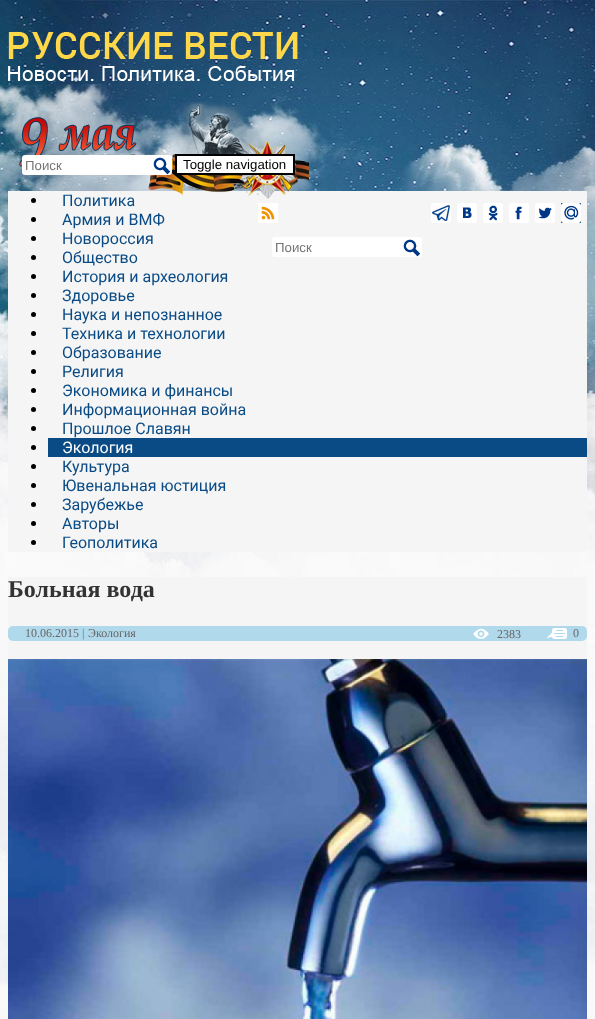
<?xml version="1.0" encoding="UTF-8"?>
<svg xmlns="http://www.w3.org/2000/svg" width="595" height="1019">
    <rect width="100%" height="100%" fill="#FFFFFF"/>
    <image x="0" y="0" width="595" height="1019" href="img_01.png"/>
    <rect x="8" y="191" width="579" height="361" fill="#F5F5F5"/>
    <image x="19" y="102" width="290" height="97" href="img_04.png"/>
    <rect x="22" y="155" width="150" height="20" rx="3" fill="#FFFFFF"/>
    <text x="25" y="170" font-family="Liberation Sans" font-size="13.25" fill="#757575">Поиск</text>
    <image x="153" y="157" width="18" height="18" href="img_02.png"/>
    <rect x="176" y="155" width="118" height="19" fill="#FFFFFF" stroke="#000000" stroke-width="2"/>
    <text x="183" y="169" font-family="Liberation Sans" font-size="13.25" fill="#000000">Toggle navigation</text>
    <circle cx="33.5" cy="200.5" r="2.5" fill="#000000"/>
    <text x="62" y="206" font-family="Roboto" font-size="16" fill="#0A4B85">Политика</text>
    <circle cx="33.5" cy="219.5" r="2.5" fill="#000000"/>
    <text x="62" y="225" font-family="Roboto" font-size="16" fill="#0A4B85">Армия и ВМФ</text>
    <circle cx="33.5" cy="238.5" r="2.5" fill="#000000"/>
    <text x="62" y="244" font-family="Roboto" font-size="16" fill="#0A4B85">Новороссия</text>
    <circle cx="33.5" cy="257.5" r="2.5" fill="#000000"/>
    <text x="62" y="263" font-family="Roboto" font-size="16" fill="#0A4B85">Общество</text>
    <circle cx="33.5" cy="276.5" r="2.5" fill="#000000"/>
    <text x="62" y="282" font-family="Roboto" font-size="16" fill="#0A4B85">История и археология</text>
    <circle cx="33.5" cy="295.5" r="2.5" fill="#000000"/>
    <text x="62" y="301" font-family="Roboto" font-size="16" fill="#0A4B85">Здоровье</text>
    <circle cx="33.5" cy="314.5" r="2.5" fill="#000000"/>
    <text x="62" y="320" font-family="Roboto" font-size="16" fill="#0A4B85">Наука и непознанное</text>
    <circle cx="33.5" cy="333.5" r="2.5" fill="#000000"/>
    <text x="62" y="339" font-family="Roboto" font-size="16" fill="#0A4B85">Техника и технологии</text>
    <circle cx="33.5" cy="352.5" r="2.5" fill="#000000"/>
    <text x="62" y="358" font-family="Roboto" font-size="16" fill="#0A4B85">Образование</text>
    <circle cx="33.5" cy="371.5" r="2.5" fill="#000000"/>
    <text x="62" y="377" font-family="Roboto" font-size="16" fill="#0A4B85">Религия</text>
    <circle cx="33.5" cy="390.5" r="2.5" fill="#000000"/>
    <text x="62" y="396" font-family="Roboto" font-size="16" fill="#0A4B85">Экономика и финансы</text>
    <circle cx="33.5" cy="409.5" r="2.5" fill="#000000"/>
    <text x="62" y="415" font-family="Roboto" font-size="16" fill="#0A4B85">Информационная война</text>
    <circle cx="33.5" cy="428.5" r="2.5" fill="#000000"/>
    <text x="62" y="434" font-family="Roboto" font-size="16" fill="#0A4B85">Прошлое Славян</text>
    <rect x="48" y="438" width="539" height="19" fill="#0A4B85"/>
    <circle cx="33.5" cy="447.5" r="2.5" fill="#000000"/>
    <text x="62" y="453" font-family="Roboto" font-size="16" fill="#FFFFFF">Экология</text>
    <circle cx="33.5" cy="466.5" r="2.5" fill="#000000"/>
    <text x="62" y="472" font-family="Roboto" font-size="16" fill="#0A4B85">Культура</text>
    <circle cx="33.5" cy="485.5" r="2.5" fill="#000000"/>
    <text x="62" y="491" font-family="Roboto" font-size="16" fill="#0A4B85">Ювенальная юстиция</text>
    <circle cx="33.5" cy="504.5" r="2.5" fill="#000000"/>
    <text x="62" y="510" font-family="Roboto" font-size="16" fill="#0A4B85">Зарубежье</text>
    <circle cx="33.5" cy="523.5" r="2.5" fill="#000000"/>
    <text x="62" y="529" font-family="Roboto" font-size="16" fill="#0A4B85">Авторы</text>
    <circle cx="33.5" cy="542.5" r="2.5" fill="#000000"/>
    <text x="62" y="548" font-family="Roboto" font-size="16" fill="#0A4B85">Геополитика</text>
    <image x="8" y="32" width="290" height="49" href="img_03.png"/>
    <image x="258" y="203" width="20" height="20" href="img_05.png"/>
    <image x="431" y="203" width="20" height="20" href="img_06.png"/>
    <image x="457" y="203" width="20" height="20" href="img_07.png"/>
    <image x="483" y="203" width="20" height="20" href="img_08.png"/>
    <image x="509" y="203" width="20" height="20" href="img_09.png"/>
    <image x="535" y="203" width="20" height="20" href="img_10.png"/>
    <image x="561" y="203" width="20" height="20" href="img_11.png"/>
    <rect x="272" y="237" width="150" height="20" rx="3" fill="#FFFFFF"/>
    <text x="275" y="252" font-family="Liberation Sans" font-size="13.25" fill="#757575">Поиск</text>
    <image x="403" y="239" width="18" height="18" href="img_12.png"/>
    <rect x="8" y="577" width="579" height="82" fill="#F5F5F5"/>
    <text x="8" y="597" font-family="Liberation Serif" font-size="24" font-weight="700" fill="#333333">Больная вода</text>
    <rect x="8" y="626" width="579" height="15" rx="5" fill="#B1D9EC"/>
    <text x="25" y="637" font-family="Liberation Serif" font-size="12" fill="#666666">10.06.2015</text>
    <text x="82" y="637" font-family="Liberation Serif" font-size="12" font-weight="700" fill="#37A7DC">|</text>
    <text x="88" y="637" font-family="Liberation Serif" font-size="12" fill="#666666">Экология</text>
    <image x="473" y="628" width="16" height="11" href="img_13.png"/>
    <text x="497" y="638" font-family="Liberation Serif" font-size="12" fill="#666666">2383</text>
    <image x="547" y="628" width="20" height="11" href="img_14.png"/>
    <text x="573" y="637" font-family="Liberation Serif" font-size="12" fill="#666666">0</text>
    <image x="8" y="659" width="579" height="360" href="img_15.png"/>
</svg>
